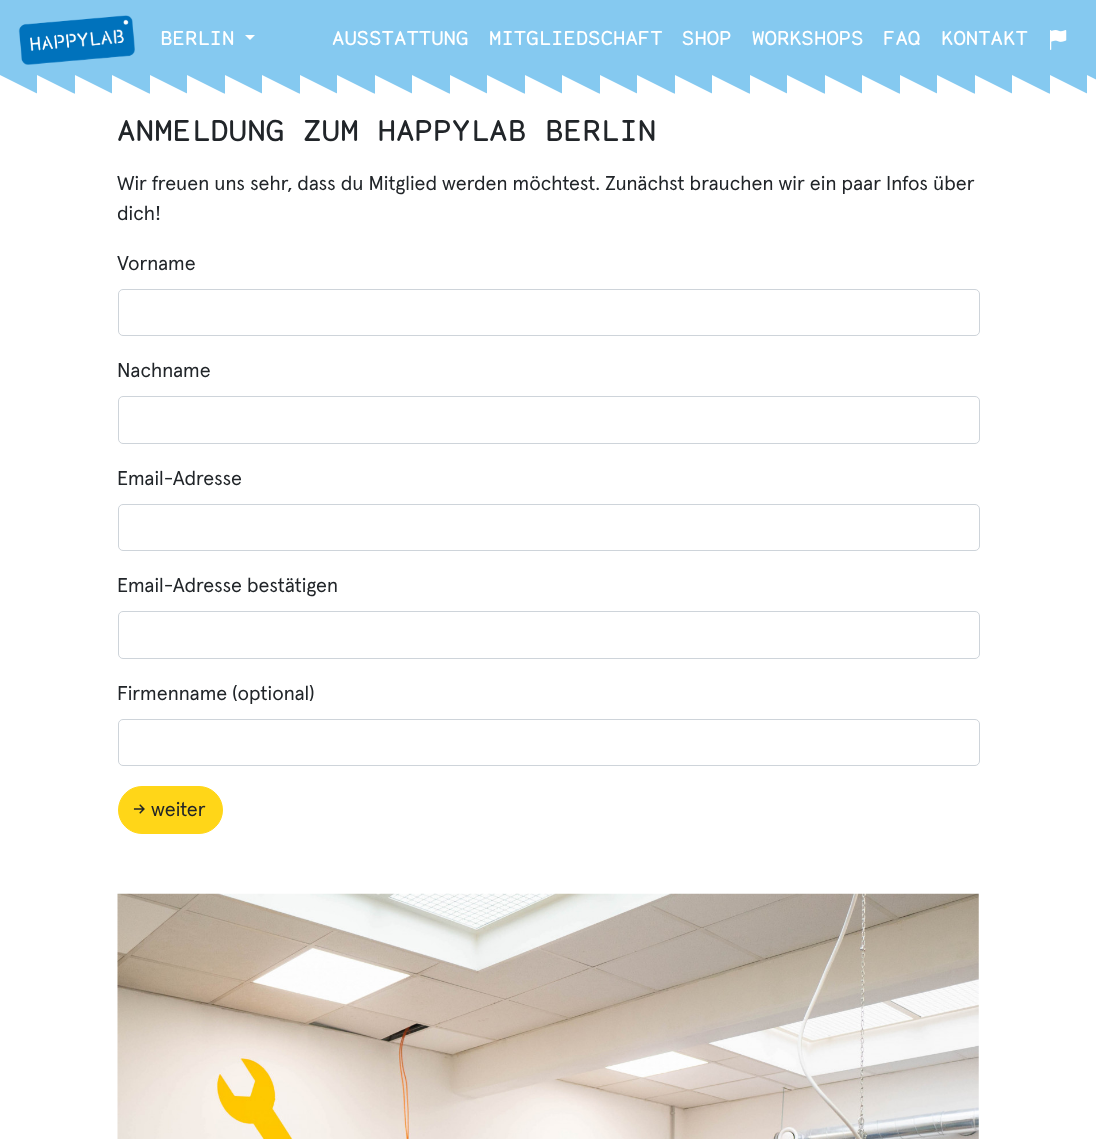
<?xml version="1.0" encoding="UTF-8"?>
<svg xmlns="http://www.w3.org/2000/svg" width="1096" height="1139">
    <rect width="100%" height="100%" fill="#FFFFFF"/>
    <rect x="0" y="0" width="1096" height="75" fill="#85C9F0"/>
    <image x="18" y="15" width="117" height="50" href="img_01.png"/>
    <text x="160" y="45" font-family="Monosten" font-size="20" fill="#FFFFFF">BERLIN</text>
    <path d="M 245 35 H 255 L 250 40 Z" fill="#FFFFFF"/>
    <text x="332" y="45" font-family="Monosten" font-size="20" fill="#FFFFFF">AUSSTATTUNG</text>
    <text x="489" y="45" font-family="Monosten" font-size="20" fill="#FFFFFF">MITGLIEDSCHAFT</text>
    <text x="682" y="45" font-family="Monosten" font-size="20" fill="#FFFFFF">SHOP</text>
    <text x="752" y="45" font-family="Monosten" font-size="20" fill="#FFFFFF">WORKSHOPS</text>
    <text x="883" y="45" font-family="Monosten" font-size="20" fill="#FFFFFF">FAQ</text>
    <text x="941" y="45" font-family="Monosten" font-size="20" fill="#FFFFFF">KONTAKT</text>
    <image x="1050" y="30" width="17" height="20" href="img_02.png"/>
    <image x="0" y="75" width="1096" height="19" href="img_03.png"/>
    <text x="117" y="141" font-family="Monosten" font-size="30" fill="#212529">ANMELDUNG ZUM HAPPYLAB BERLIN</text>
    <text font-family="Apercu" font-size="20" fill="#212529">
        <tspan x="117" y="190">Wir freuen uns sehr, dass du Mitglied werden möchtest. Zunächst brauchen wir ein paar Infos über</tspan>
        <tspan x="117" y="220">dich!</tspan>
    </text>
    <text x="117" y="270" font-family="Apercu" font-size="20" fill="#212529">Vorname</text>
    <rect x="118.5" y="289.5" width="861" height="46" rx="4.5" fill="none" stroke="#CED4DA"/>
    <text x="117" y="377" font-family="Apercu" font-size="20" fill="#212529">Nachname</text>
    <rect x="118.5" y="396.5" width="861" height="47" rx="4.5" fill="none" stroke="#CED4DA"/>
    <text x="117" y="485" font-family="Apercu" font-size="20" fill="#212529">Email-Adresse</text>
    <rect x="118.5" y="504.5" width="861" height="46" rx="4.5" fill="none" stroke="#CED4DA"/>
    <text x="117" y="592" font-family="Apercu" font-size="20" fill="#212529">Email-Adresse bestätigen</text>
    <rect x="118.5" y="611.5" width="861" height="47" rx="4.5" fill="none" stroke="#CED4DA"/>
    <text x="117" y="700" font-family="Apercu" font-size="20" fill="#212529">Firmenname (optional)</text>
    <rect x="118.5" y="719.5" width="861" height="46" rx="4.5" fill="none" stroke="#CED4DA"/>
    <rect x="118.5" y="786.5" width="104" height="47" rx="23.5" fill="#FFD618" stroke="#FFD618"/>
    <text x="133" y="816" font-family="Apercu" font-size="20" fill="#212529">→ weiter</text>
    <image x="117" y="893" width="862" height="246" href="img_04.png"/>
</svg>
